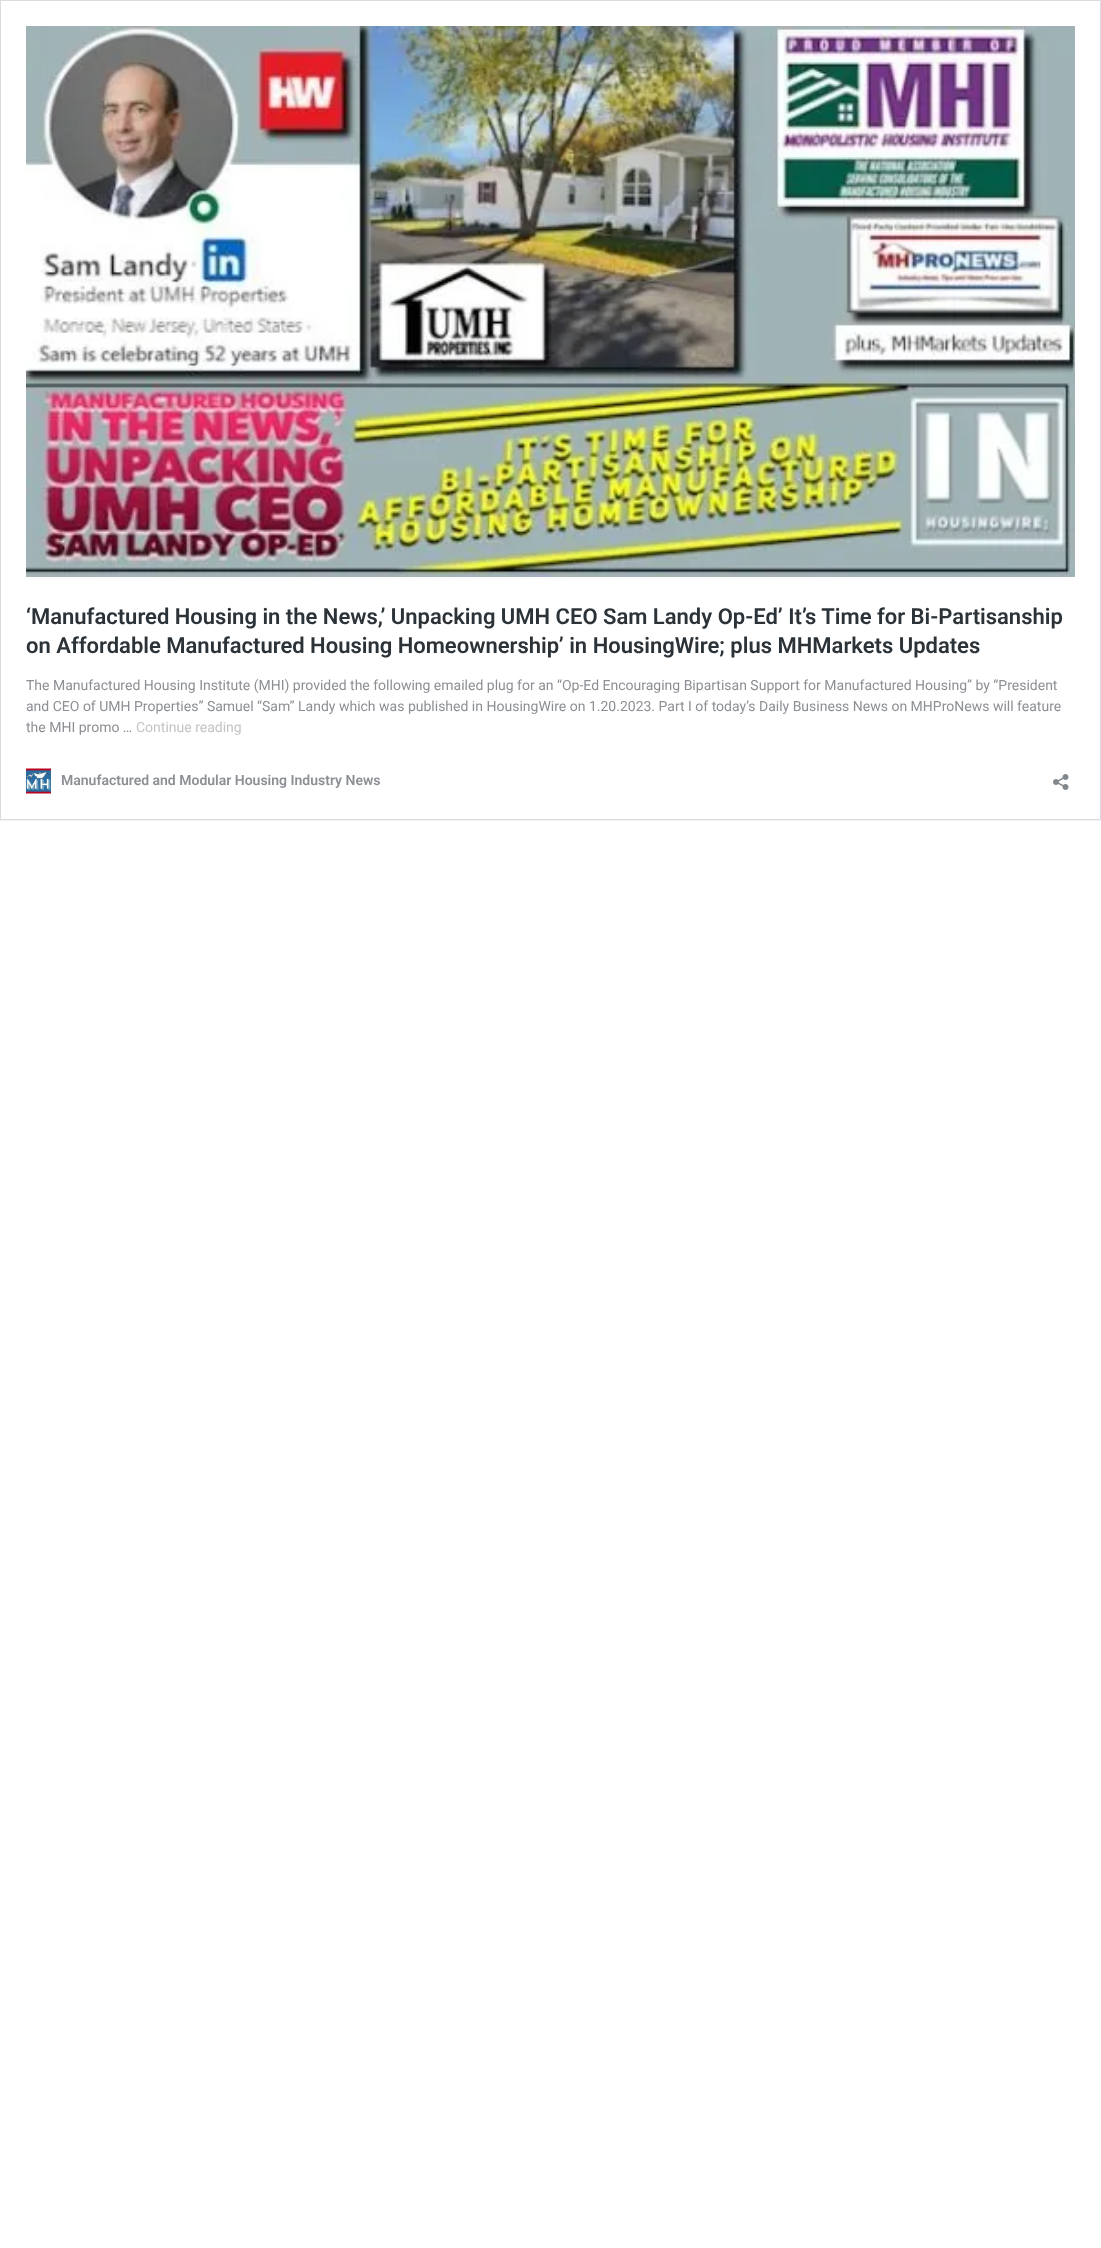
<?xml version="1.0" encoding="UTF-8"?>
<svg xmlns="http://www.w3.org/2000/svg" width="1101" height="2248">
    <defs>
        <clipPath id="clip1"><rect x="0" y="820" width="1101" height="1"/></clipPath>
        <filter id="blur1" x="-50%" y="-200%" width="200%" height="500%"><feGaussianBlur stdDeviation="0.5"/></filter>
    </defs>
    <rect width="100%" height="100%" fill="#FFFFFF"/>
    <g clip-path="url(#clip1)">
        <rect x="0" y="1" width="1101" height="820" fill="#000000" fill-opacity="0.05" filter="url(#blur1)"/>
    </g>
    <rect x="0.5" y="0.5" width="1100" height="819" fill="none" stroke="#DCDCDE"/>
    <image x="26" y="26" width="1049" height="551" href="img_01.png"/>
    <text font-family="Roboto" font-size="22" font-weight="600" fill="#2C3338">
        <tspan x="26" y="624">‘Manufactured Housing in the News,’ Unpacking UMH CEO Sam Landy Op-Ed’ It’s Time for Bi-Partisanship</tspan>
        <tspan x="26" y="653">on Affordable Manufactured Housing Homeownership’ in HousingWire; plus MHMarkets Updates</tspan>
    </text>
    <text font-family="Roboto" font-size="14" fill="#8C8F94">
        <tspan x="26" y="690">The Manufactured Housing Institute (MHI) provided the following emailed plug for an “Op-Ed Encouraging Bipartisan Support for Manufactured Housing” by “President</tspan>
        <tspan x="26" y="711">and CEO of UMH Properties” Samuel “Sam” Landy which was published in HousingWire on 1.20.2023. Part I of today’s Daily Business News on MHProNews will feature</tspan>
        <tspan x="26" y="732">the MHI promo …</tspan>
    </text>
    <text x="136" y="732" font-family="Roboto" font-size="14" fill="#C3C4C7">Continue reading</text>
    <image x="26" y="768" width="25" height="26" href="img_02.png"/>
    <text x="61" y="785" font-family="Roboto" font-size="14" font-weight="600" fill="#8C8F94">Manufactured and Modular Housing Industry News</text>
    <image x="1053" y="774" width="16" height="16" href="img_03.png"/>
</svg>
